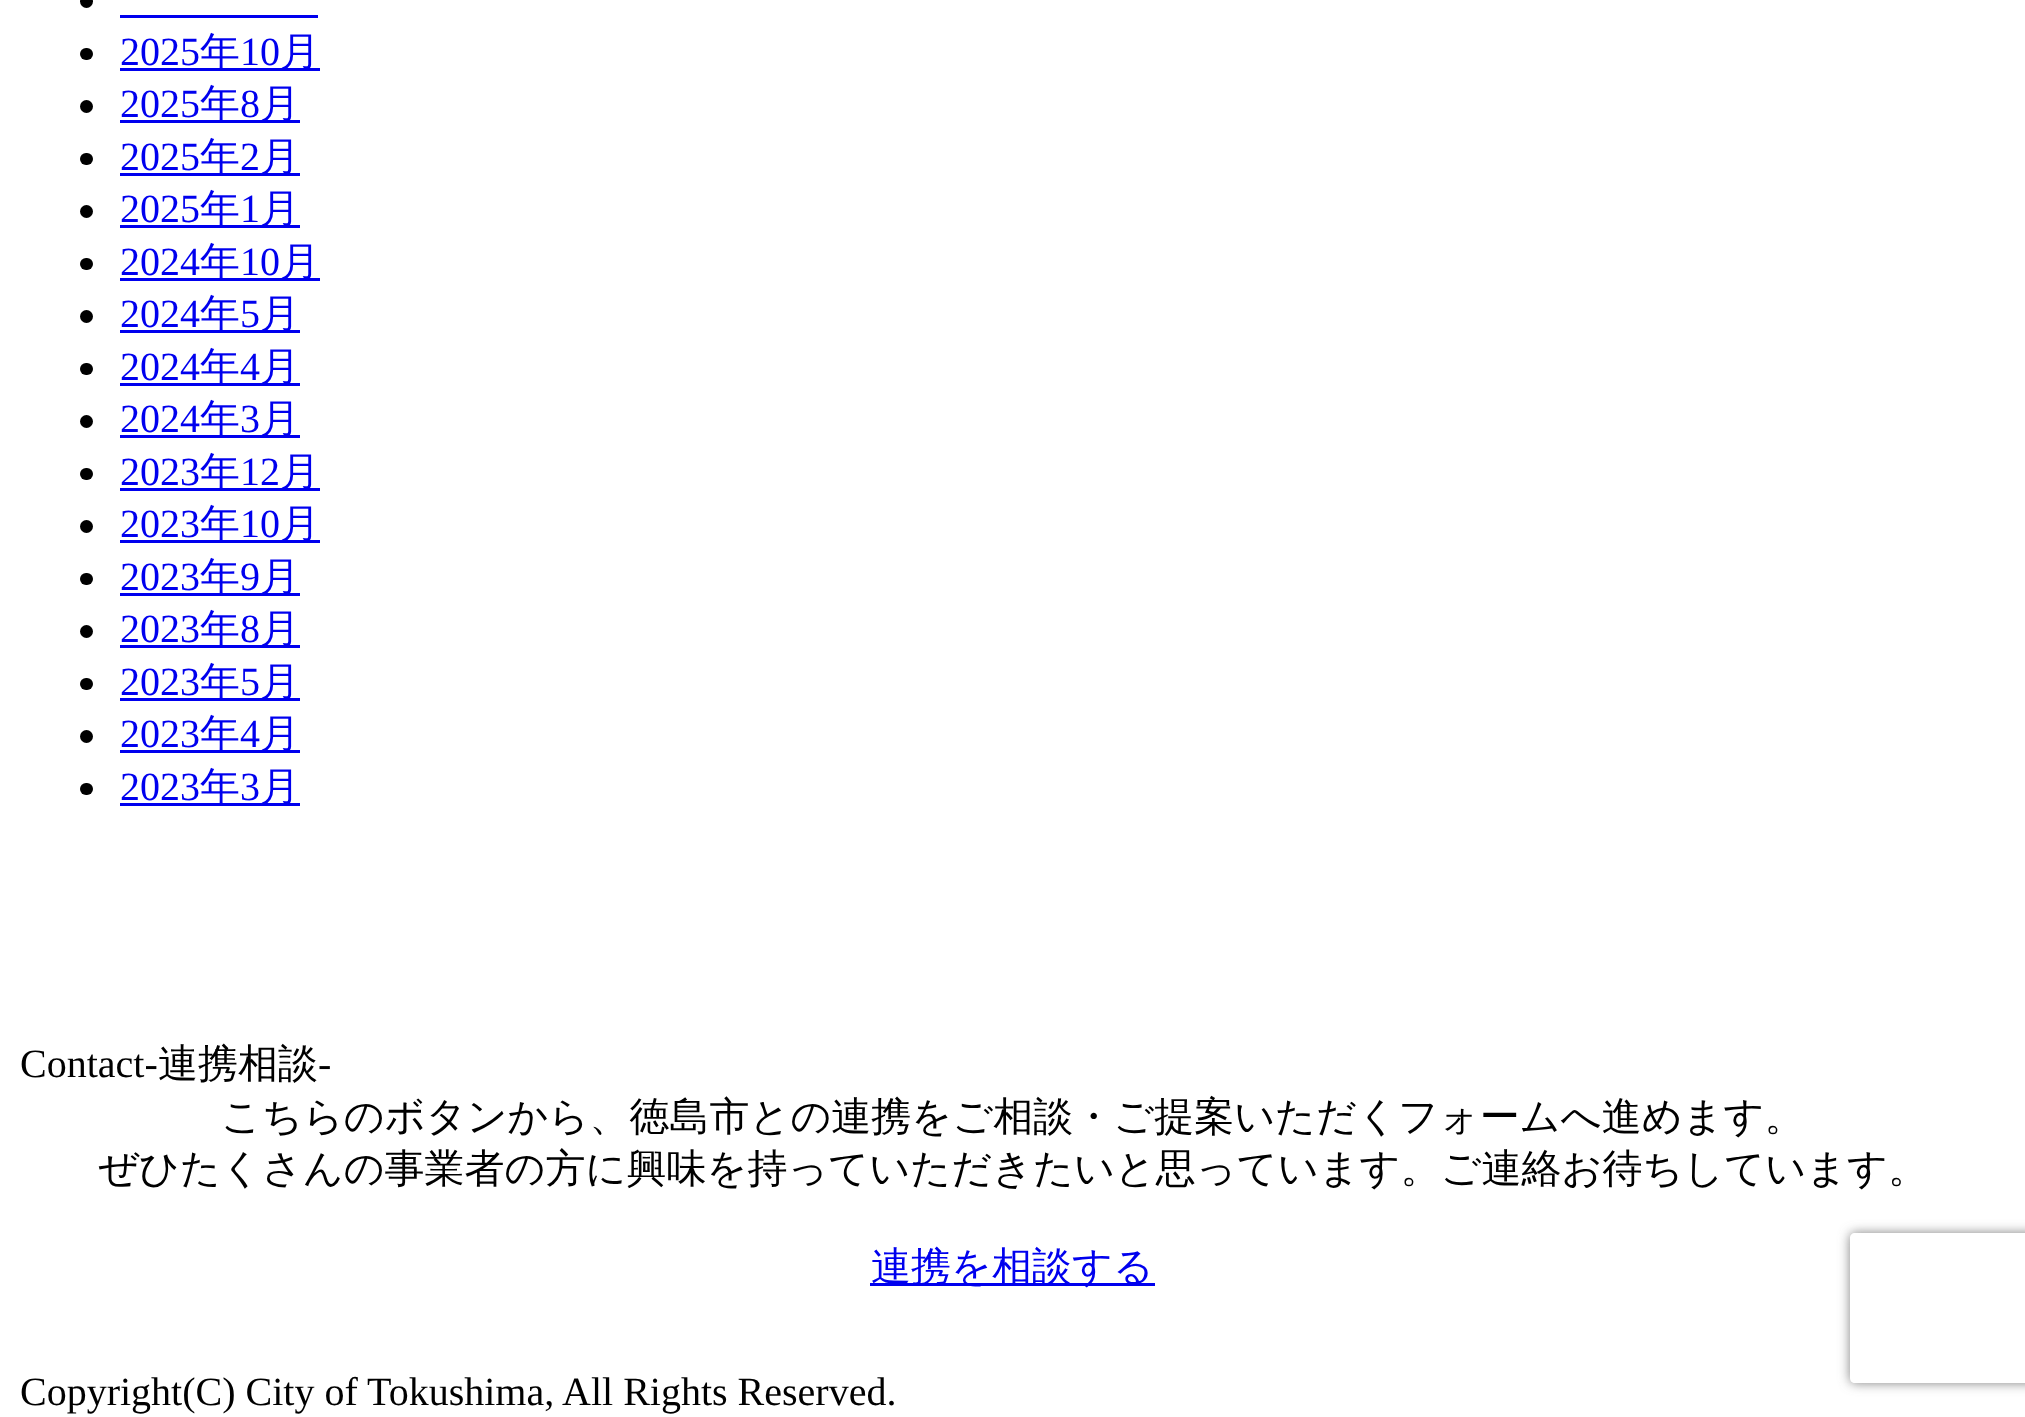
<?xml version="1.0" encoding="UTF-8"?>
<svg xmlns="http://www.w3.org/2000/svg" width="2025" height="1417">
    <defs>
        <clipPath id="clip1"><path d="M 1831 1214 H 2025 V 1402 H 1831 Z M 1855 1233 H 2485 C 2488 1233 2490 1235 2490 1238 V 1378 C 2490 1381 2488 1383 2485 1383 H 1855 C 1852 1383 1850 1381 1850 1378 V 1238 C 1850 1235 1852 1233 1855 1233 Z" clip-rule="evenodd"/></clipPath>
        <filter id="blur1" x="-50%" y="-200%" width="200%" height="500%"><feGaussianBlur stdDeviation="6"/></filter>
    </defs>
    <rect width="100%" height="100%" fill="#FFFFFF"/>
    <circle cx="86.5" cy="1.5" r="6.5" fill="#000000"/>
    <rect x="120" y="15" width="198" height="3" fill="#0000EE"/>
    <rect x="80" y="48" width="13" height="12" rx="6" fill="#000000"/>
    <text x="120" y="65" font-family="Liberation Serif" font-size="40" fill="#0000EE">2025</text>
    <rect x="120" y="68" width="200" height="3" fill="#0000EE"/>
    <text x="200" y="65" font-family="WenQuanYi Zen Hei" font-size="40" font-weight="500" fill="#0000EE">年</text>
    <text x="240" y="65" font-family="Liberation Serif" font-size="40" fill="#0000EE">10</text>
    <text x="280" y="65" font-family="WenQuanYi Zen Hei" font-size="40" font-weight="500" fill="#0000EE">月</text>
    <circle cx="86.5" cy="106.5" r="6.5" fill="#000000"/>
    <text x="120" y="117" font-family="Liberation Serif" font-size="40" fill="#0000EE">2025</text>
    <rect x="120" y="120" width="180" height="3" fill="#0000EE"/>
    <text x="200" y="117" font-family="WenQuanYi Zen Hei" font-size="40" font-weight="500" fill="#0000EE">年</text>
    <text x="240" y="117" font-family="Liberation Serif" font-size="40" fill="#0000EE">8</text>
    <text x="260" y="117" font-family="WenQuanYi Zen Hei" font-size="40" font-weight="500" fill="#0000EE">月</text>
    <rect x="80" y="153" width="13" height="12" rx="6" fill="#000000"/>
    <text x="120" y="170" font-family="Liberation Serif" font-size="40" fill="#0000EE">2025</text>
    <rect x="120" y="173" width="180" height="3" fill="#0000EE"/>
    <text x="200" y="170" font-family="WenQuanYi Zen Hei" font-size="40" font-weight="500" fill="#0000EE">年</text>
    <text x="240" y="170" font-family="Liberation Serif" font-size="40" fill="#0000EE">2</text>
    <text x="260" y="170" font-family="WenQuanYi Zen Hei" font-size="40" font-weight="500" fill="#0000EE">月</text>
    <circle cx="86.5" cy="211.5" r="6.5" fill="#000000"/>
    <text x="120" y="222" font-family="Liberation Serif" font-size="40" fill="#0000EE">2025</text>
    <rect x="120" y="225" width="180" height="3" fill="#0000EE"/>
    <text x="200" y="222" font-family="WenQuanYi Zen Hei" font-size="40" font-weight="500" fill="#0000EE">年</text>
    <text x="240" y="222" font-family="Liberation Serif" font-size="40" fill="#0000EE">1</text>
    <text x="260" y="222" font-family="WenQuanYi Zen Hei" font-size="40" font-weight="500" fill="#0000EE">月</text>
    <rect x="80" y="258" width="13" height="12" rx="6" fill="#000000"/>
    <text x="120" y="275" font-family="Liberation Serif" font-size="40" fill="#0000EE">2024</text>
    <rect x="120" y="278" width="200" height="3" fill="#0000EE"/>
    <text x="200" y="275" font-family="WenQuanYi Zen Hei" font-size="40" font-weight="500" fill="#0000EE">年</text>
    <text x="240" y="275" font-family="Liberation Serif" font-size="40" fill="#0000EE">10</text>
    <text x="280" y="275" font-family="WenQuanYi Zen Hei" font-size="40" font-weight="500" fill="#0000EE">月</text>
    <circle cx="86.5" cy="316.5" r="6.5" fill="#000000"/>
    <text x="120" y="327" font-family="Liberation Serif" font-size="40" fill="#0000EE">2024</text>
    <rect x="120" y="330" width="180" height="3" fill="#0000EE"/>
    <text x="200" y="327" font-family="WenQuanYi Zen Hei" font-size="40" font-weight="500" fill="#0000EE">年</text>
    <text x="240" y="327" font-family="Liberation Serif" font-size="40" fill="#0000EE">5</text>
    <text x="260" y="327" font-family="WenQuanYi Zen Hei" font-size="40" font-weight="500" fill="#0000EE">月</text>
    <rect x="80" y="363" width="13" height="12" rx="6" fill="#000000"/>
    <text x="120" y="380" font-family="Liberation Serif" font-size="40" fill="#0000EE">2024</text>
    <rect x="120" y="383" width="180" height="3" fill="#0000EE"/>
    <text x="200" y="380" font-family="WenQuanYi Zen Hei" font-size="40" font-weight="500" fill="#0000EE">年</text>
    <text x="240" y="380" font-family="Liberation Serif" font-size="40" fill="#0000EE">4</text>
    <text x="260" y="380" font-family="WenQuanYi Zen Hei" font-size="40" font-weight="500" fill="#0000EE">月</text>
    <circle cx="86.5" cy="421.5" r="6.5" fill="#000000"/>
    <text x="120" y="432" font-family="Liberation Serif" font-size="40" fill="#0000EE">2024</text>
    <rect x="120" y="435" width="180" height="3" fill="#0000EE"/>
    <text x="200" y="432" font-family="WenQuanYi Zen Hei" font-size="40" font-weight="500" fill="#0000EE">年</text>
    <text x="240" y="432" font-family="Liberation Serif" font-size="40" fill="#0000EE">3</text>
    <text x="260" y="432" font-family="WenQuanYi Zen Hei" font-size="40" font-weight="500" fill="#0000EE">月</text>
    <rect x="80" y="468" width="13" height="12" rx="6" fill="#000000"/>
    <text x="120" y="485" font-family="Liberation Serif" font-size="40" fill="#0000EE">2023</text>
    <rect x="120" y="488" width="200" height="3" fill="#0000EE"/>
    <text x="200" y="485" font-family="WenQuanYi Zen Hei" font-size="40" font-weight="500" fill="#0000EE">年</text>
    <text x="240" y="485" font-family="Liberation Serif" font-size="40" fill="#0000EE">12</text>
    <text x="280" y="485" font-family="WenQuanYi Zen Hei" font-size="40" font-weight="500" fill="#0000EE">月</text>
    <circle cx="86.5" cy="526.5" r="6.5" fill="#000000"/>
    <text x="120" y="537" font-family="Liberation Serif" font-size="40" fill="#0000EE">2023</text>
    <rect x="120" y="540" width="200" height="3" fill="#0000EE"/>
    <text x="200" y="537" font-family="WenQuanYi Zen Hei" font-size="40" font-weight="500" fill="#0000EE">年</text>
    <text x="240" y="537" font-family="Liberation Serif" font-size="40" fill="#0000EE">10</text>
    <text x="280" y="537" font-family="WenQuanYi Zen Hei" font-size="40" font-weight="500" fill="#0000EE">月</text>
    <rect x="80" y="573" width="13" height="12" rx="6" fill="#000000"/>
    <text x="120" y="590" font-family="Liberation Serif" font-size="40" fill="#0000EE">2023</text>
    <rect x="120" y="593" width="180" height="3" fill="#0000EE"/>
    <text x="200" y="590" font-family="WenQuanYi Zen Hei" font-size="40" font-weight="500" fill="#0000EE">年</text>
    <text x="240" y="590" font-family="Liberation Serif" font-size="40" fill="#0000EE">9</text>
    <text x="260" y="590" font-family="WenQuanYi Zen Hei" font-size="40" font-weight="500" fill="#0000EE">月</text>
    <circle cx="86.5" cy="631.5" r="6.5" fill="#000000"/>
    <text x="120" y="642" font-family="Liberation Serif" font-size="40" fill="#0000EE">2023</text>
    <rect x="120" y="645" width="180" height="3" fill="#0000EE"/>
    <text x="200" y="642" font-family="WenQuanYi Zen Hei" font-size="40" font-weight="500" fill="#0000EE">年</text>
    <text x="240" y="642" font-family="Liberation Serif" font-size="40" fill="#0000EE">8</text>
    <text x="260" y="642" font-family="WenQuanYi Zen Hei" font-size="40" font-weight="500" fill="#0000EE">月</text>
    <rect x="80" y="678" width="13" height="12" rx="6" fill="#000000"/>
    <text x="120" y="695" font-family="Liberation Serif" font-size="40" fill="#0000EE">2023</text>
    <rect x="120" y="698" width="180" height="3" fill="#0000EE"/>
    <text x="200" y="695" font-family="WenQuanYi Zen Hei" font-size="40" font-weight="500" fill="#0000EE">年</text>
    <text x="240" y="695" font-family="Liberation Serif" font-size="40" fill="#0000EE">5</text>
    <text x="260" y="695" font-family="WenQuanYi Zen Hei" font-size="40" font-weight="500" fill="#0000EE">月</text>
    <circle cx="86.5" cy="736.5" r="6.5" fill="#000000"/>
    <text x="120" y="747" font-family="Liberation Serif" font-size="40" fill="#0000EE">2023</text>
    <rect x="120" y="750" width="180" height="3" fill="#0000EE"/>
    <text x="200" y="747" font-family="WenQuanYi Zen Hei" font-size="40" font-weight="500" fill="#0000EE">年</text>
    <text x="240" y="747" font-family="Liberation Serif" font-size="40" fill="#0000EE">4</text>
    <text x="260" y="747" font-family="WenQuanYi Zen Hei" font-size="40" font-weight="500" fill="#0000EE">月</text>
    <rect x="80" y="783" width="13" height="12" rx="6" fill="#000000"/>
    <text x="120" y="800" font-family="Liberation Serif" font-size="40" fill="#0000EE">2023</text>
    <rect x="120" y="803" width="180" height="3" fill="#0000EE"/>
    <text x="200" y="800" font-family="WenQuanYi Zen Hei" font-size="40" font-weight="500" fill="#0000EE">年</text>
    <text x="240" y="800" font-family="Liberation Serif" font-size="40" fill="#0000EE">3</text>
    <text x="260" y="800" font-family="WenQuanYi Zen Hei" font-size="40" font-weight="500" fill="#0000EE">月</text>
    <text x="20" y="1077" font-family="Liberation Serif" font-size="40" fill="#000000">Contact-</text>
    <text x="158" y="1077" font-family="WenQuanYi Zen Hei" font-size="40" font-weight="500" fill="#000000">連携相談</text>
    <text x="318" y="1077" font-family="Liberation Serif" font-size="40" fill="#000000">-</text>
    <text x="221" y="1130" font-family="WenQuanYi Zen Hei" font-size="40" font-weight="500" fill="#000000">こちらのボタンから、徳島市との連携をご相談・ご提案いただくフォームへ進めます。</text>
    <text x="98" y="1182" font-family="WenQuanYi Zen Hei" font-size="40" font-weight="500" fill="#000000">ぜひたくさんの事業者の方に興味を持っていただきたいと思っています。ご連絡お待ちしています。</text>
    <rect x="870" y="1283" width="285" height="3" fill="#0000EE"/>
    <text x="871" y="1280" font-family="WenQuanYi Zen Hei" font-size="40" font-weight="500" fill="#0000EE">連携を相談する</text>
    <text x="20" y="1405" font-family="Liberation Serif" font-size="40" fill="#000000">Copyright(C) City of Tokushima, All Rights Reserved.</text>
    <g clip-path="url(#clip1)">
        <rect x="1850" y="1233" width="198" height="150" rx="5" fill="#808080" filter="url(#blur1)"/>
    </g>
</svg>
